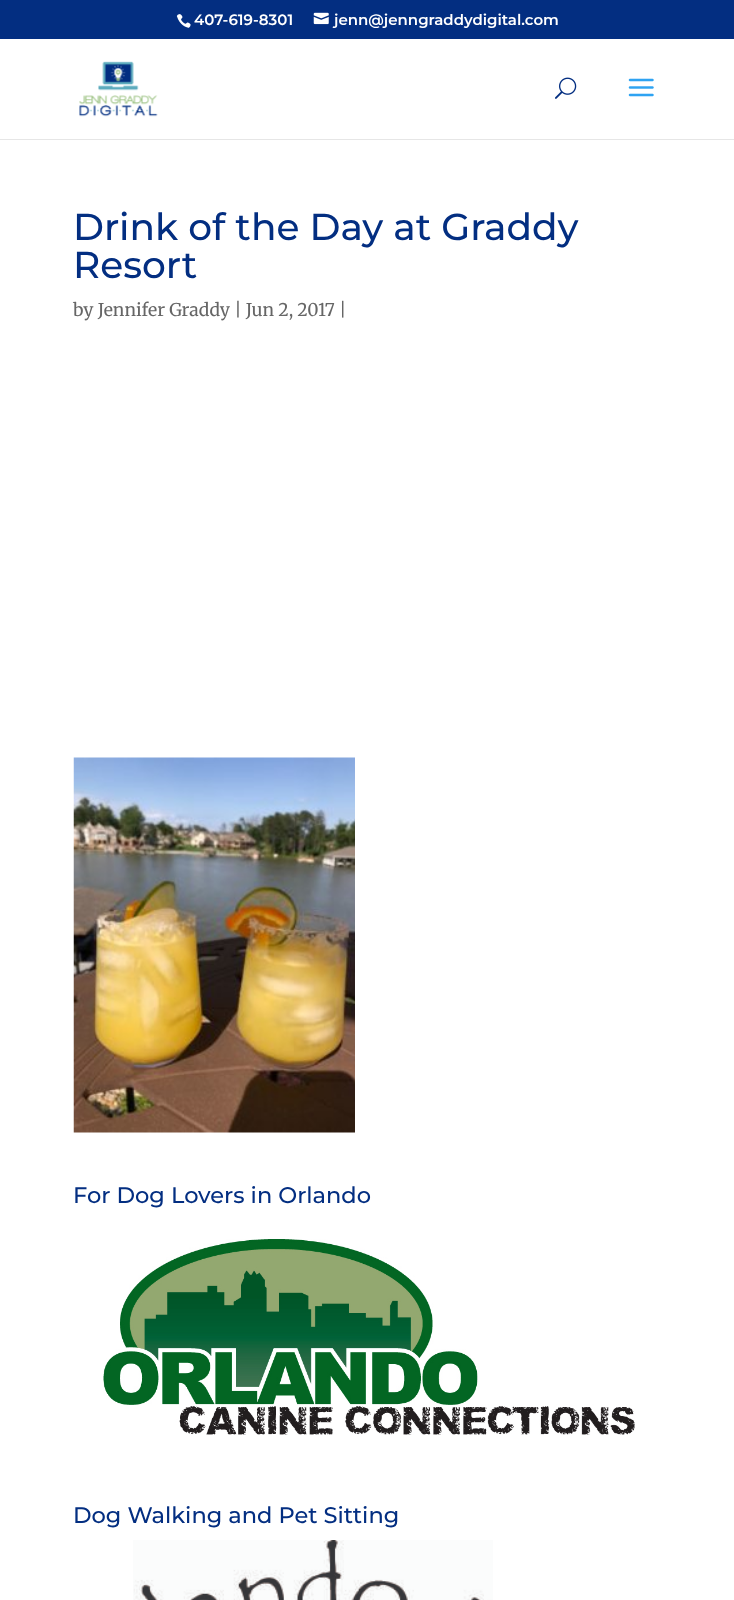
<?xml version="1.0" encoding="UTF-8"?>
<svg xmlns="http://www.w3.org/2000/svg" width="734" height="1600">
    <rect width="100%" height="100%" fill="#FFFFFF"/>
    <rect x="0" y="0" width="734" height="39" fill="#032E81"/>
    <image x="176" y="14" width="15" height="14" href="img_01.png"/>
    <text x="194" y="25" font-family="'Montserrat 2'" font-size="15" font-weight="100" fill="#FFFFFF">407-619-8301</text>
    <image x="313" y="12" width="16" height="13" href="img_02.png"/>
    <text x="334" y="25" font-family="'Montserrat 2'" font-size="15" font-weight="100" fill="#FFFFFF">jenn@jenngraddydigital.com</text>
    <rect x="0" y="139" width="734" height="1" fill="#E6E6E6"/>
    <image x="79" y="61" width="79" height="56" href="img_03.png"/>
    <image x="555" y="77" width="22" height="22" href="img_04.png"/>
    <image x="628" y="78" width="26" height="19" href="img_05.png"/>
    <text font-family="Montserrat" font-size="37.5" font-weight="100" fill="#032E81">
        <tspan x="73" y="240">Drink of the Day at Graddy</tspan>
        <tspan x="73" y="278">Resort</tspan>
    </text>
    <text x="73" y="316" font-family="Merriweather" font-size="17.5" font-weight="300" fill="#666666">by Jennifer Graddy | Jun 2, 2017 |</text>
    <image x="73" y="757" width="282" height="376" href="img_06.png"/>
    <text x="73" y="1203" font-family="Montserrat" font-size="22.5" font-weight="100" fill="#032E81">For Dog Lovers in Orlando</text>
    <image x="103" y="1239" width="532" height="196" href="img_07.png"/>
    <text x="73" y="1523" font-family="Montserrat" font-size="22.5" font-weight="100" fill="#032E81">Dog Walking and Pet Sitting</text>
    <image x="133" y="1540" width="360" height="60" href="img_08.png"/>
</svg>
